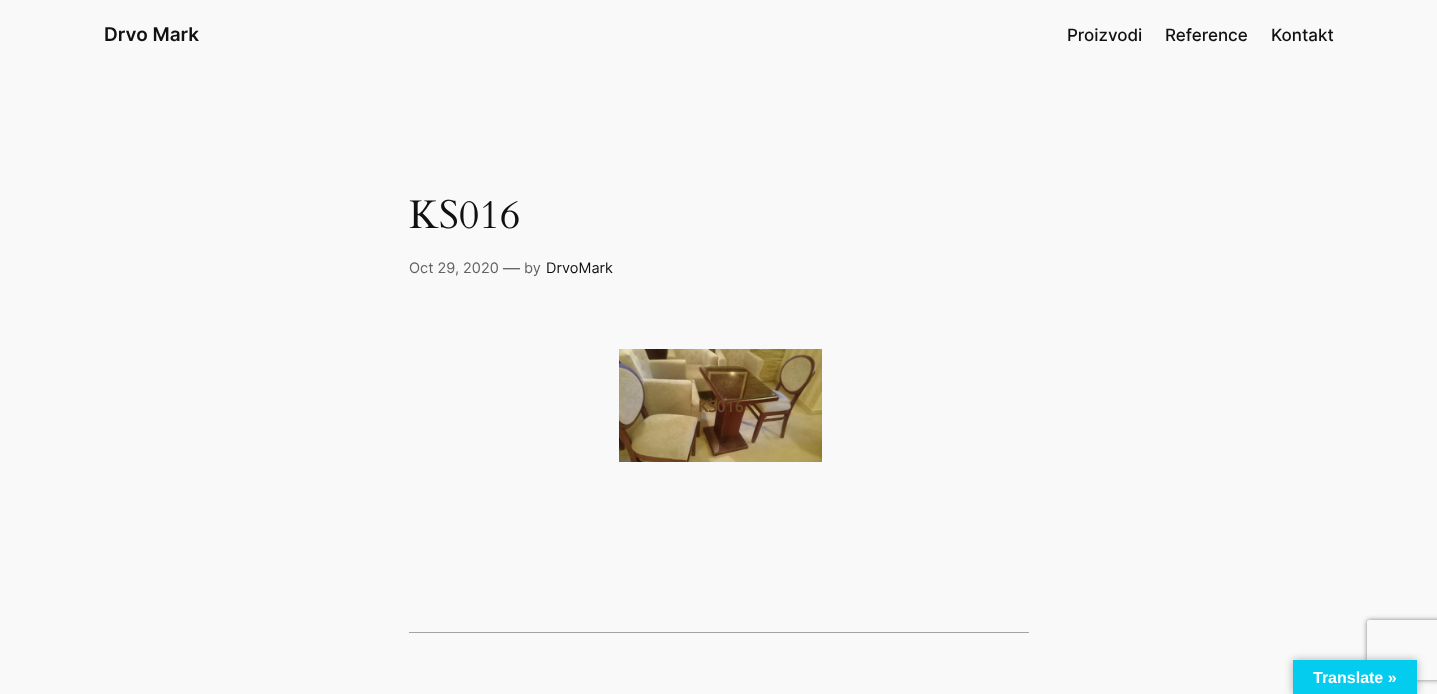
<?xml version="1.0" encoding="UTF-8"?>
<svg xmlns="http://www.w3.org/2000/svg" width="1437" height="694">
    <defs>
        <filter id="blur1" x="-50%" y="-200%" width="200%" height="500%"><feGaussianBlur stdDeviation="4.5"/></filter>
        <clipPath id="clip1"><path d="M 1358 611 H 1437 V 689 H 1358 Z M 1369 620 H 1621 C 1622 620 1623 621 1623 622 V 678 C 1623 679 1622 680 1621 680 H 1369 C 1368 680 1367 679 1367 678 V 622 C 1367 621 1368 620 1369 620 Z" clip-rule="evenodd"/></clipPath>
        <filter id="blur2" x="-50%" y="-200%" width="200%" height="500%"><feGaussianBlur stdDeviation="2.5"/></filter>
    </defs>
    <rect width="100%" height="100%" fill="#F9F9F9"/>
    <text x="104" y="41" font-family="Inter" font-size="19" font-weight="600" fill="#111111">Drvo Mark</text>
    <text x="1067" y="41" font-family="Inter" font-size="17" font-weight="500" fill="#111111">Proizvodi</text>
    <text x="1165" y="41" font-family="Inter" font-size="17" font-weight="500" fill="#111111">Reference</text>
    <text x="1271" y="41" font-family="Inter" font-size="17" font-weight="500" fill="#111111">Kontakt</text>
    <image x="409" y="199" width="110" height="30" href="img_01.png"/>
    <text x="409" y="273" font-family="Inter" font-size="14.5" fill="#636363">Oct 29, 2020</text>
    <text x="503" y="274" font-family="Inter" font-size="17" fill="#636363">—</text>
    <text x="524" y="273" font-family="Inter" font-size="14.5" fill="#636363">by</text>
    <text x="546" y="273" font-family="Inter" font-size="14.5" fill="#111111">DrvoMark</text>
    <image x="619" y="349" width="203" height="113" href="img_02.png"/>
    <text x="698" y="412" font-family="Ubuntu" font-size="16" font-weight="700" fill="#6A4426">KS016</text>
    <rect x="409" y="632" width="620" height="1" fill="#A4A4A4"/>
    <rect x="1293" y="660" width="124" height="34" fill="#000000" fill-opacity="0.3" filter="url(#blur1)"/>
    <g clip-path="url(#clip1)">
        <rect x="1367" y="620" width="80" height="60" rx="2" fill="#808080" filter="url(#blur2)"/>
    </g>
    <rect x="1293" y="660" width="124" height="34" fill="#04CCEF"/>
    <text x="1313" y="683" font-family="Liberation Sans" font-size="16" font-weight="700" fill="#FFFFFF">Translate »</text>
</svg>
